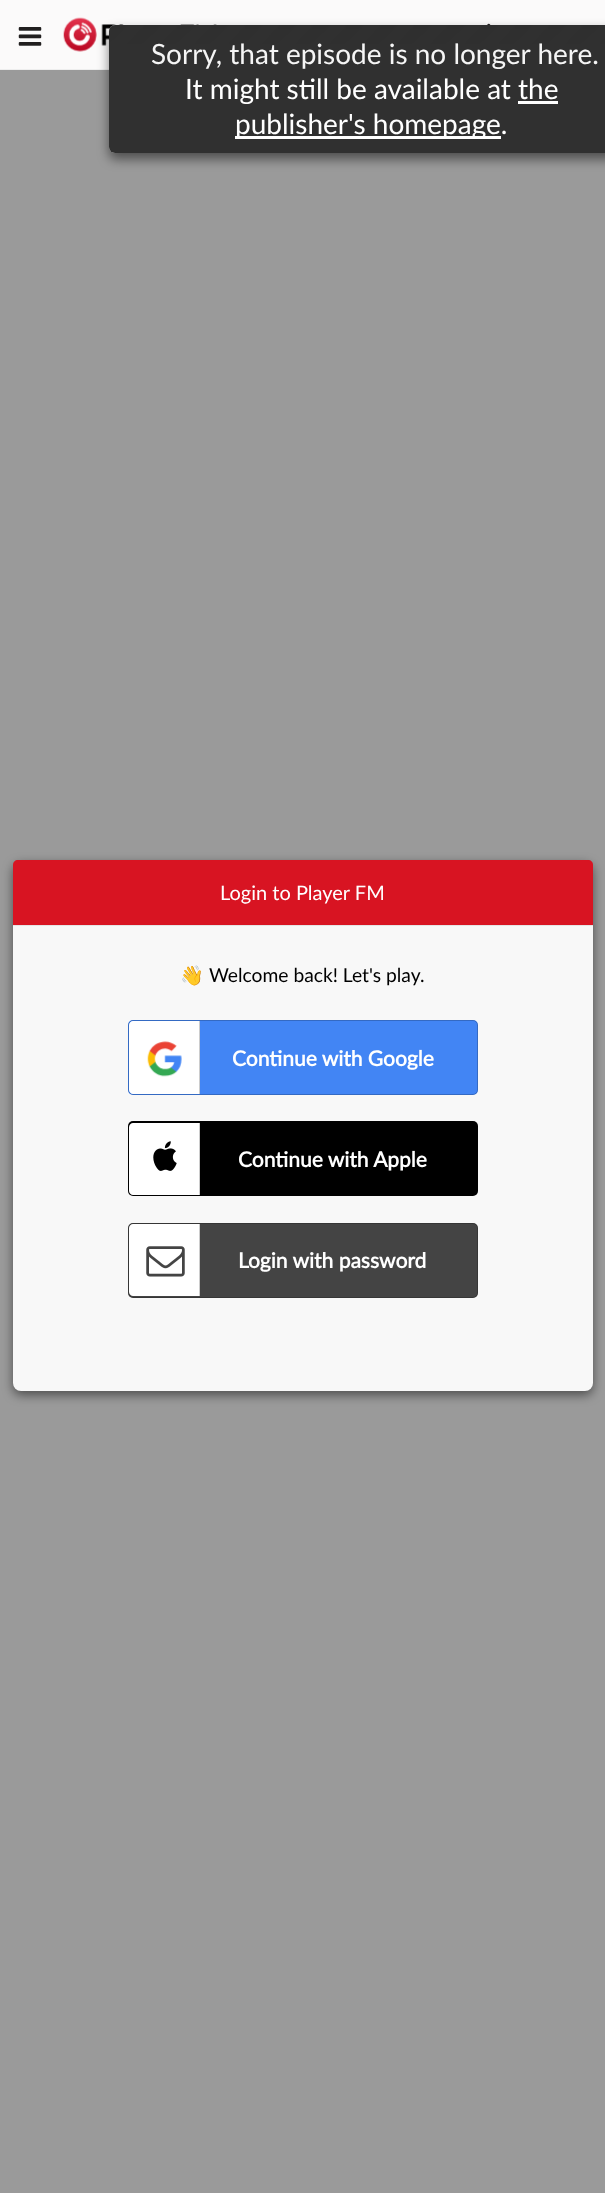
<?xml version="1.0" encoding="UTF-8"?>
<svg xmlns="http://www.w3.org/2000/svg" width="605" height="2193">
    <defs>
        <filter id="blur1" x="-50%" y="-200%" width="200%" height="500%"><feGaussianBlur stdDeviation="6"/></filter>
        <filter id="blur2" x="-50%" y="-200%" width="200%" height="500%"><feGaussianBlur stdDeviation="5.5"/></filter>
    </defs>
    <rect width="100%" height="100%" fill="#9A9A9A"/>
    <rect x="0" y="0" width="605" height="69" fill="#FBFAFA"/>
    <rect x="0" y="69" width="109" height="1" fill="#EEEEEE"/>
    <image x="18" y="27" width="24" height="19" href="img_01.png"/>
    <image x="63" y="17" width="154" height="35" href="img_02.png"/>
    <image x="487" y="23" width="4" height="2" href="img_03.png"/>
    <rect x="109" y="31" width="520" height="128" rx="6" fill="#000000" fill-opacity="0.5" filter="url(#blur1)"/>
    <rect x="109" y="25" width="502" height="128" rx="6" fill="#FFFFFF"/>
    <image x="109" y="25" width="496" height="19" href="img_04.png"/>
    <rect x="109" y="25" width="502" height="128" rx="6" fill="#000000" fill-opacity="0.81"/>
    <text x="151" y="64" font-family="Lato" font-size="28" fill="#F5F5F5">Sorry, that episode is no longer here.</text>
    <text x="185" y="99" font-family="Lato" font-size="28" fill="#FFFFFF">It might still be available at the</text>
    <rect x="518" y="101" width="40" height="3" fill="#FFFFFF"/>
    <rect x="235" y="136" width="266" height="3" fill="#FFFFFF"/>
    <text x="235" y="134" font-family="Lato" font-size="28" fill="#FFFFFF">publisher's homepage.</text>
    <rect x="13" y="864" width="580" height="531" rx="8" fill="#000000" fill-opacity="0.5" filter="url(#blur2)"/>
    <rect x="13" y="860" width="580" height="531" rx="8" fill="#F8F8F8"/>
    <path d="M 18 860 H 588 C 591 860 593 862 593 865 V 926 H 13 V 865 C 13 862 15 860 18 860 Z" fill="#D81422"/>
    <rect x="13" y="925" width="580" height="1" fill="#E5E5E5"/>
    <text x="220" y="900" font-family="Lato" font-size="20" fill="#FFFFFF">Login to Player FM</text>
    <text x="180" y="982" font-family="Noto Color Emoji" font-size="19.25" fill="#000000">👋</text>
    <text x="209" y="982" font-family="Lato" font-size="19.25" fill="#000000">Welcome back! Let's play.</text>
    <rect x="128" y="1020" width="350" height="75" rx="5" fill="#4285F4"/>
    <rect x="128.5" y="1020.5" width="349" height="74" rx="4.5" fill="none" stroke="#000000" stroke-opacity="0.2"/>
    <path d="M 133 1021 H 200 V 1094 H 133 C 131 1094 129 1092 129 1090 V 1025 C 129 1023 131 1021 133 1021 Z" fill="#FFFFFF"/>
    <rect x="199" y="1021" width="1" height="73" fill="#CCCCCC"/>
    <image x="147" y="1041" width="35" height="36" href="img_05.png"/>
    <text x="232" y="1066" font-family="Lato" font-size="21" font-weight="700" fill="#FFFFFF">Continue with Google</text>
    <rect x="128" y="1121" width="350" height="75" rx="5" fill="#000000"/>
    <path d="M 133 1123 H 200 V 1195 H 133 C 131 1195 129 1193 129 1191 V 1127 C 129 1125 131 1123 133 1123 Z" fill="#FFFFFF"/>
    <rect x="199" y="1123" width="1" height="72" fill="#CCCCCC"/>
    <image x="153" y="1141" width="24" height="30" href="img_06.png"/>
    <text x="238" y="1167" font-family="Lato" font-size="21" font-weight="700" fill="#FFFFFF">Continue with Apple</text>
    <rect x="128" y="1223" width="350" height="75" rx="5" fill="#444444"/>
    <rect x="128.5" y="1223.5" width="349" height="74" rx="4.5" fill="none" stroke="#000000" stroke-opacity="0.2"/>
    <path d="M 133 1224 H 200 V 1296 H 133 C 131 1296 129 1294 129 1292 V 1228 C 129 1226 131 1224 133 1224 Z" fill="#FFFFFF"/>
    <rect x="199" y="1224" width="1" height="72" fill="#CCCCCC"/>
    <image x="146" y="1246" width="39" height="31" href="img_07.png"/>
    <text x="238" y="1268" font-family="Lato" font-size="21" font-weight="700" fill="#FFFFFF">Login with password</text>
</svg>
